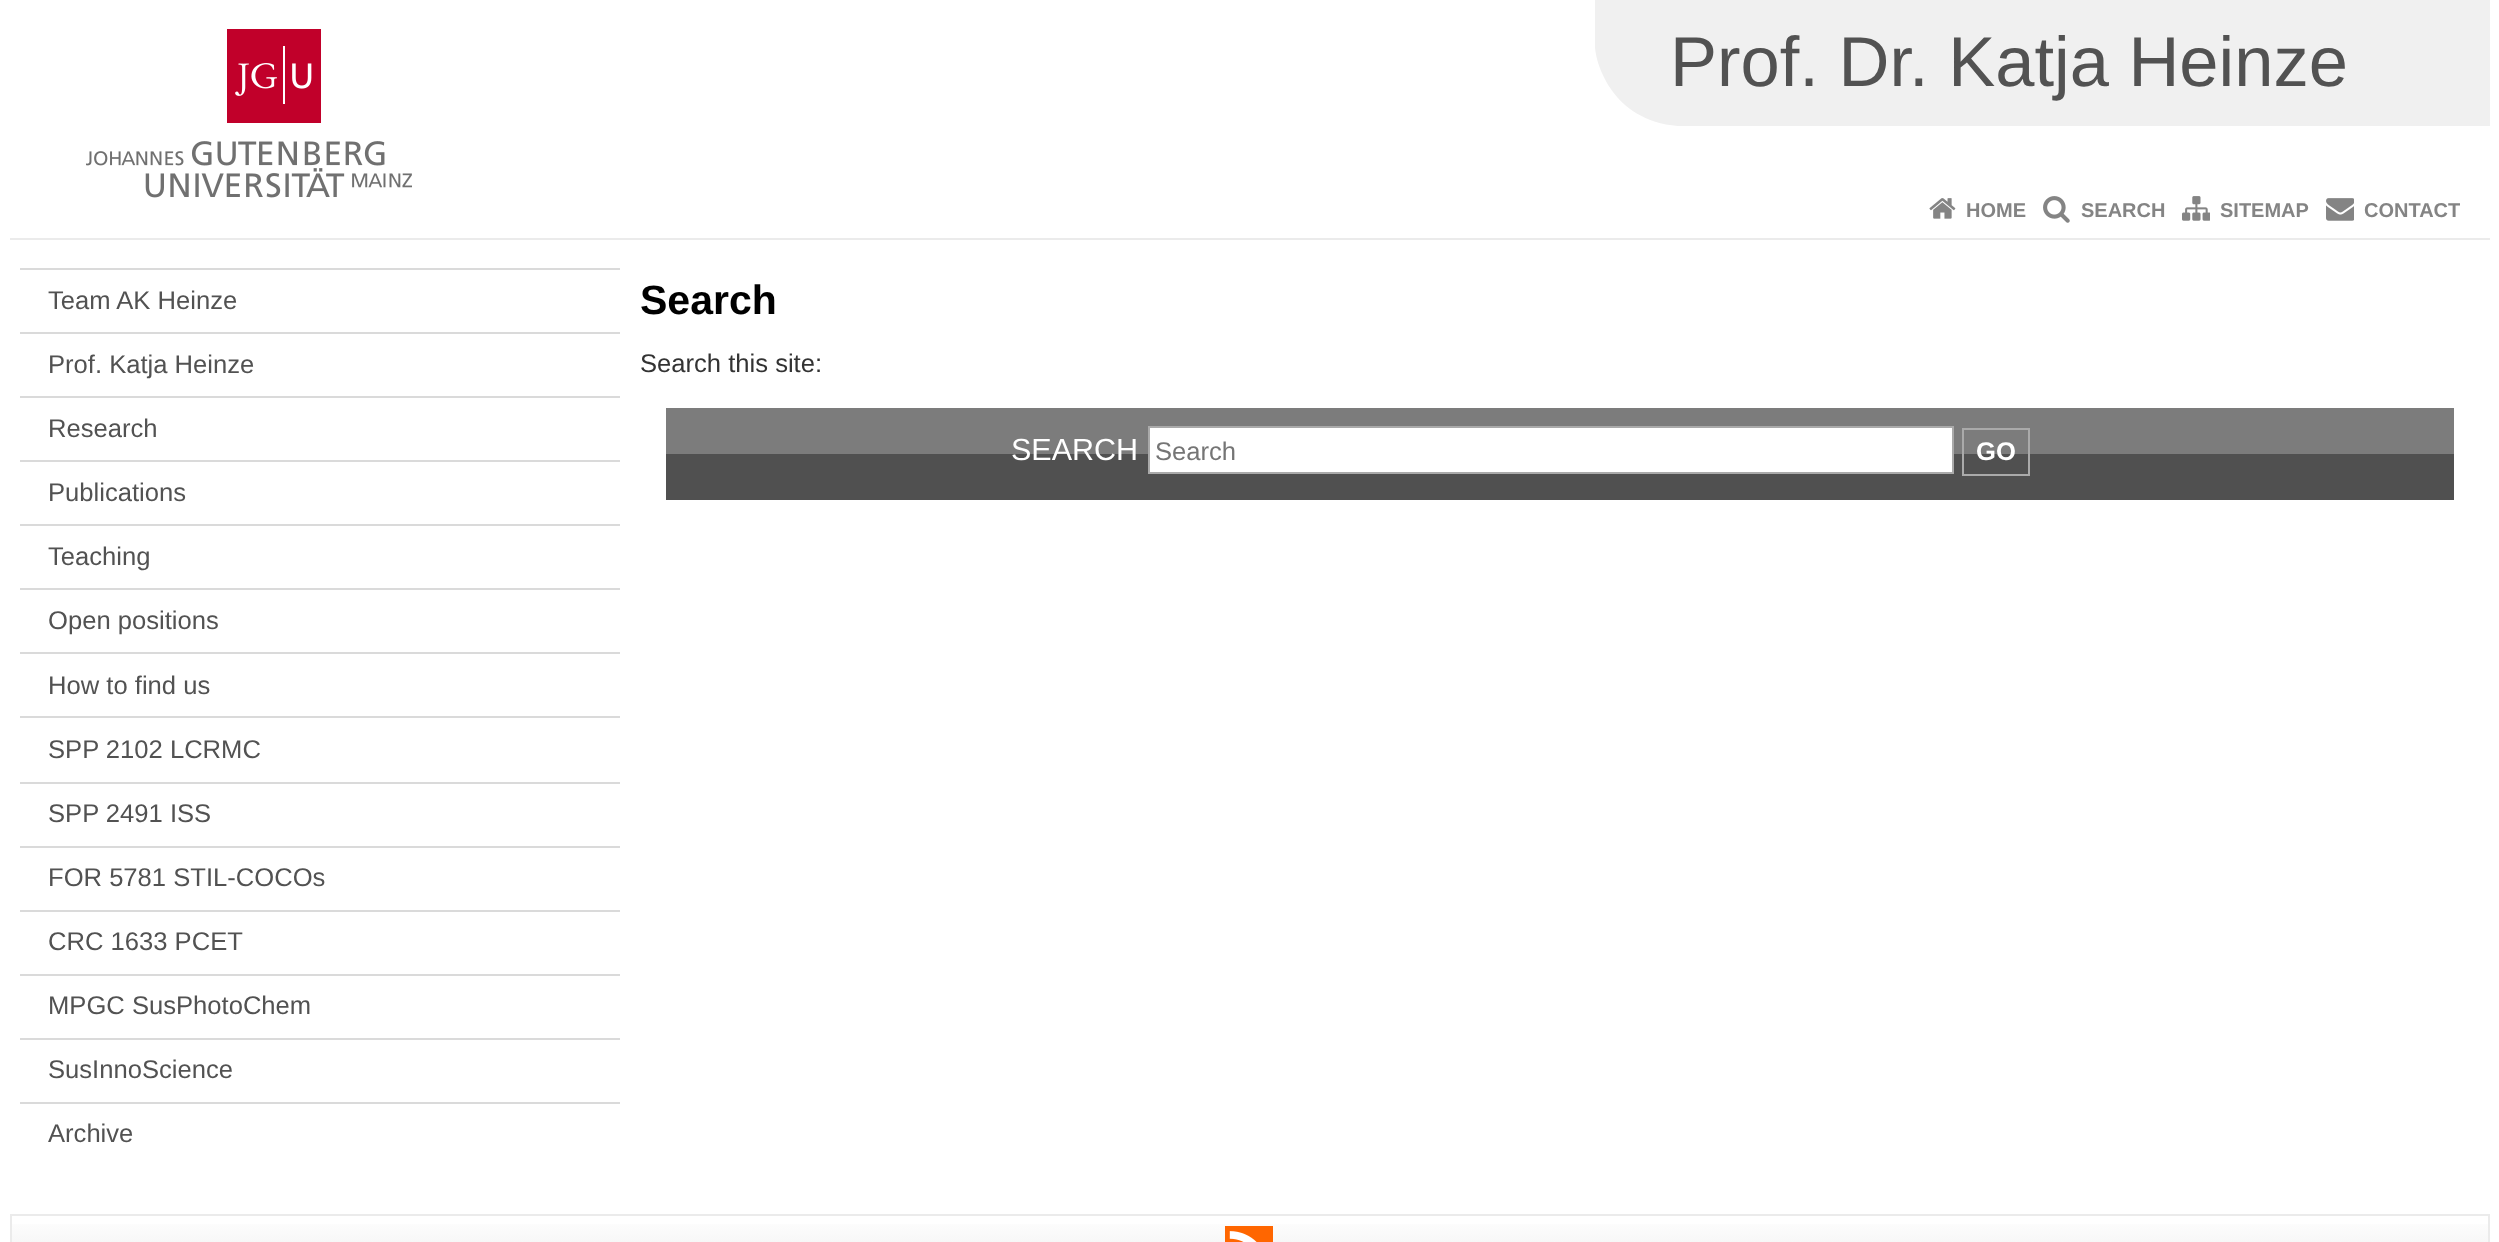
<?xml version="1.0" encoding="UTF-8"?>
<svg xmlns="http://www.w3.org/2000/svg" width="2499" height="1242">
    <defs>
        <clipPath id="clip1"><rect x="1590" y="0" width="900" height="180"/></clipPath>
        <linearGradient id="g1" gradientUnits="userSpaceOnUse" x1="1250" y1="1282" x2="1250" y2="1216"><stop offset="0" stop-color="#EBEBEB"/><stop offset="1" stop-color="#FFFFFF"/></linearGradient>
    </defs>
    <rect width="100%" height="100%" fill="#FFFFFF"/>
    <image x="86" y="29" width="326" height="169" href="img_01.png"/>
    <g clip-path="url(#clip1)">
        <path d="M 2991 126 H 1678 C 1611 121 1595 61 1595 46 V 0 H 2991 Z" fill="#F0F0F0"/>
    </g>
    <text x="1670" y="86" font-family="Liberation Sans" font-size="70.5" fill="#525252">Prof. Dr. Katja Heinze</text>
    <image x="1929" y="198" width="27" height="21" href="img_02.png"/>
    <text x="1966" y="217" font-family="Liberation Sans" font-size="20" font-weight="700" fill="#848484">HOME</text>
    <image x="2043" y="196" width="27" height="27" href="img_03.png"/>
    <text x="2081" y="217" font-family="Liberation Sans" font-size="20" font-weight="700" fill="#848484">SEARCH</text>
    <image x="2182" y="196" width="28" height="25" href="img_04.png"/>
    <text x="2220" y="217" font-family="Liberation Sans" font-size="20" font-weight="700" fill="#848484">SITEMAP</text>
    <image x="2326" y="198" width="28" height="23" href="img_05.png"/>
    <text x="2364" y="217" font-family="Liberation Sans" font-size="20" font-weight="700" fill="#848484">CONTACT</text>
    <rect x="10" y="238" width="2480" height="2" fill="#EBEBEB"/>
    <rect x="20" y="268" width="600" height="2" fill="#DADADA"/>
    <text x="48" y="309" font-family="Liberation Sans" font-size="25.6" fill="#525252">Team AK Heinze</text>
    <rect x="20" y="332" width="600" height="2" fill="#DADADA"/>
    <text x="48" y="373" font-family="Liberation Sans" font-size="25.6" fill="#525252">Prof. Katja Heinze</text>
    <rect x="20" y="396" width="600" height="2" fill="#DADADA"/>
    <text x="48" y="437" font-family="Liberation Sans" font-size="25.6" fill="#525252">Research</text>
    <rect x="20" y="460" width="600" height="2" fill="#DADADA"/>
    <text x="48" y="501" font-family="Liberation Sans" font-size="25.6" fill="#525252">Publications</text>
    <rect x="20" y="524" width="600" height="2" fill="#DADADA"/>
    <text x="48" y="565" font-family="Liberation Sans" font-size="25.6" fill="#525252">Teaching</text>
    <rect x="20" y="588" width="600" height="2" fill="#DADADA"/>
    <text x="48" y="629" font-family="Liberation Sans" font-size="25.6" fill="#525252">Open positions</text>
    <rect x="20" y="652" width="600" height="2" fill="#DADADA"/>
    <text x="48" y="694" font-family="Liberation Sans" font-size="25.6" fill="#525252">How to find us</text>
    <rect x="20" y="716" width="600" height="2" fill="#DADADA"/>
    <text x="48" y="758" font-family="Liberation Sans" font-size="25.6" fill="#525252">SPP 2102 LCRMC</text>
    <rect x="20" y="782" width="600" height="2" fill="#DADADA"/>
    <text x="48" y="822" font-family="Liberation Sans" font-size="25.6" fill="#525252">SPP 2491 ISS</text>
    <rect x="20" y="846" width="600" height="2" fill="#DADADA"/>
    <text x="48" y="886" font-family="Liberation Sans" font-size="25.6" fill="#525252">FOR 5781 STIL-COCOs</text>
    <rect x="20" y="910" width="600" height="2" fill="#DADADA"/>
    <text x="48" y="950" font-family="Liberation Sans" font-size="25.6" fill="#525252">CRC 1633 PCET</text>
    <rect x="20" y="974" width="600" height="2" fill="#DADADA"/>
    <text x="48" y="1014" font-family="Liberation Sans" font-size="25.6" fill="#525252">MPGC SusPhotoChem</text>
    <rect x="20" y="1038" width="600" height="2" fill="#DADADA"/>
    <text x="48" y="1078" font-family="Liberation Sans" font-size="25.6" fill="#525252">SusInnoScience</text>
    <rect x="20" y="1102" width="600" height="2" fill="#DADADA"/>
    <text x="48" y="1142" font-family="Liberation Sans" font-size="25.6" fill="#525252">Archive</text>
    <text x="640" y="314" font-family="Liberation Sans" font-size="41" font-weight="700" fill="#000000">Search</text>
    <text x="640" y="372" font-family="Liberation Sans" font-size="25.6" fill="#333333">Search this site:</text>
    <rect x="666" y="408" width="1788" height="46" fill="#7C7C7C"/>
    <rect x="666" y="454" width="1788" height="46" fill="#505050"/>
    <text x="1011" y="460" font-family="Liberation Sans" font-size="30.5" fill="#FFFFFF">SEARCH</text>
    <rect x="1149" y="427" width="804" height="46" fill="#FFFFFF" stroke="#AAAAAA" stroke-width="2"/>
    <text x="1155" y="460" font-family="Liberation Sans" font-size="25.6" fill="#757575">Search</text>
    <rect x="1963" y="429" width="66" height="46" fill="none" stroke="#AAAAAA" stroke-width="2"/>
    <text x="1976" y="460" font-family="Liberation Sans" font-size="25.6" font-weight="700" fill="#FFFFFF">GO</text>
    <rect x="12" y="1224" width="2476" height="18" fill="url(#g1)"/>
    <rect x="11" y="1215" width="2478" height="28" fill="none" stroke="#EBEBEB" stroke-width="2"/>
    <image x="1225" y="1226" width="48" height="16" href="img_06.png"/>
</svg>
